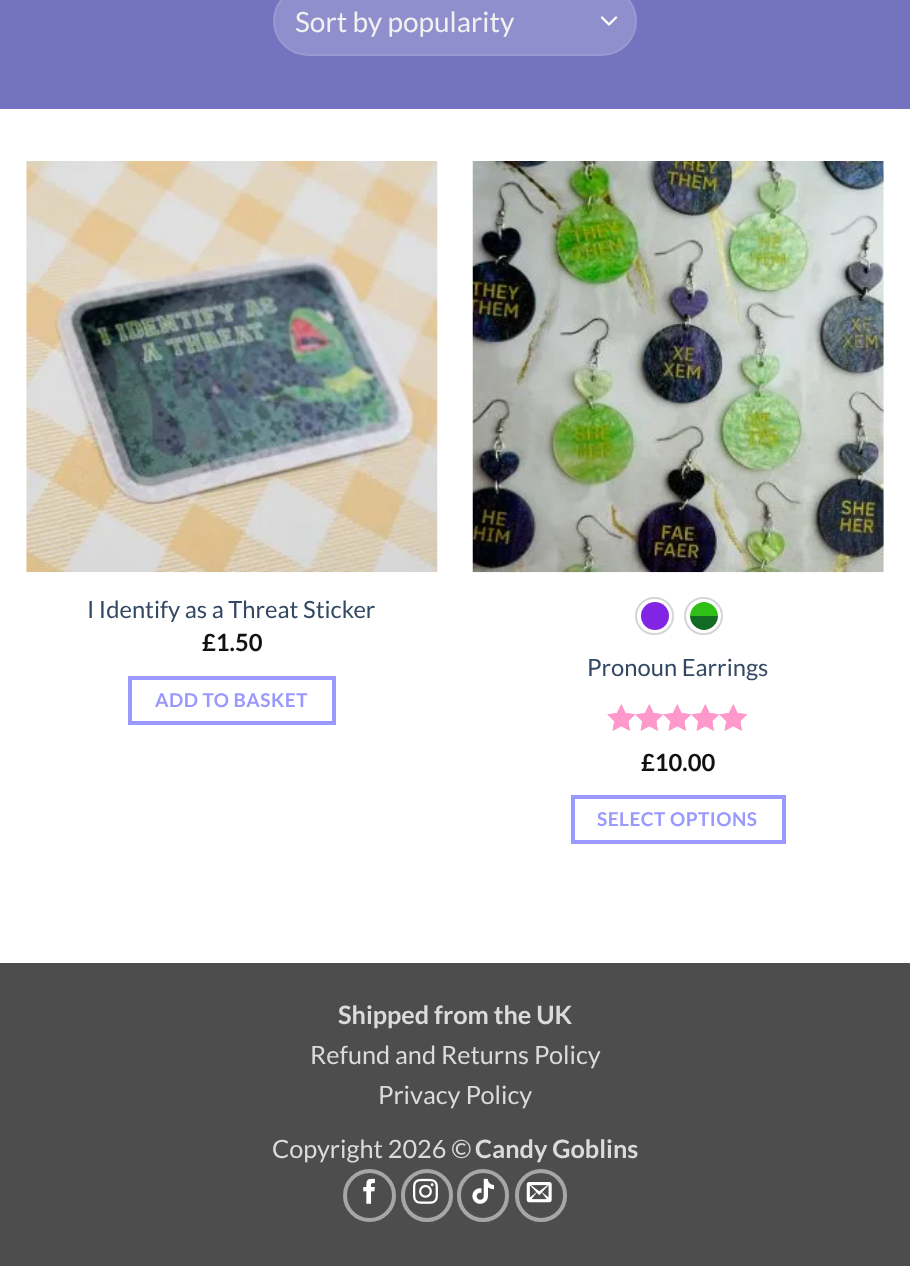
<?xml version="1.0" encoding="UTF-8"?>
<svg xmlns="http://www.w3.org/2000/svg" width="910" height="1266">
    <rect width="100%" height="100%" fill="#FFFFFF"/>
    <rect x="0" y="0" width="910" height="109" fill="#7373C0"/>
    <rect x="273" y="-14" width="364" height="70" rx="35" fill="#8F8FCD"/>
    <path d="M 602 17.5 L 609 24.5 L 616 17.5" fill="none" stroke="#FFFFFF" stroke-width="2.3" stroke-linecap="round" stroke-linejoin="round"/>
    <rect x="274" y="-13" width="362" height="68" rx="34" fill="none" stroke="#FFFFFF" stroke-opacity="0.09" stroke-width="2"/>
    <text x="295" y="32" font-family="Lato" font-size="28" fill="#F1F1F1">Sort by popularity</text>
    <image x="26" y="161" width="412" height="412" href="img_01.png"/>
    <text x="87" y="618" font-family="Lato" font-size="23.75" fill="#334862">I Identify as a Threat Sticker</text>
    <text x="202" y="651" font-family="Lato" font-size="23.75" font-weight="700" fill="#111111">£1.50</text>
    <rect x="130" y="678" width="204" height="45" fill="none" stroke="#9999FF" stroke-width="4"/>
    <text x="155" y="707" font-family="Lato" font-size="19" font-weight="700" letter-spacing="0.5" fill="#9999FF">ADD TO BASKET</text>
    <image x="472" y="161" width="412" height="412" href="img_02.png"/>
    <rect x="636" y="598" width="37" height="36" rx="18" fill="none" stroke="#D5D5D5" stroke-width="2"/>
    <circle cx="655" cy="616" r="14" fill="#8224E3"/>
    <rect x="685" y="598" width="37" height="36" rx="18" fill="none" stroke="#D5D5D5" stroke-width="2"/>
    <path d="M 704 602 C 711.5 602 718 608.5 718 616 H 690 C 690 608.5 696.5 602 704 602 Z" fill="#30BF16"/>
    <path d="M 690 616 H 718 C 718 623.5 711.5 630 704 630 C 696.5 630 690 623.5 690 616 Z" fill="#126B22"/>
    <text x="587" y="676" font-family="Lato" font-size="23.75" fill="#334862">Pronoun Earrings</text>
    <image x="607" y="704" width="140" height="27" href="img_03.png"/>
    <image x="607" y="704" width="140" height="27" href="img_04.png"/>
    <text x="641" y="771" font-family="Lato" font-size="23.75" font-weight="700" fill="#111111">£10.00</text>
    <rect x="573" y="797" width="211" height="45" fill="none" stroke="#9999FF" stroke-width="4"/>
    <text x="597" y="826" font-family="Lato" font-size="19" font-weight="700" letter-spacing="0.5" fill="#9999FF">SELECT OPTIONS</text>
    <rect x="0" y="963" width="910" height="303" fill="#4D4D4D"/>
    <text x="338" y="1024" font-family="Lato" font-size="25.25" font-weight="700" fill="#DBDBDB">Shipped from the UK</text>
    <text x="310" y="1064" font-family="Lato" font-size="25.25" fill="#DBDBDB">Refund and Returns Policy</text>
    <text x="378" y="1104" font-family="Lato" font-size="25.25" fill="#DBDBDB">Privacy Policy</text>
    <text x="272" y="1158" font-family="Lato" font-size="25.25" fill="#DBDBDB">Copyright 2026 ©</text>
    <text x="475" y="1158" font-family="Lato" font-size="25.25" font-weight="700" fill="#DBDBDB">Candy Goblins</text>
    <circle cx="369.5" cy="1195.5" r="24.5" fill="none" stroke="#A6A6A6" stroke-width="4"/>
    <image x="363" y="1178" width="12" height="26" href="img_05.png"/>
    <rect x="403" y="1171" width="48" height="49" rx="24" fill="none" stroke="#A6A6A6" stroke-width="4"/>
    <image x="413" y="1178" width="25" height="26" href="img_06.png"/>
    <rect x="459" y="1171" width="48" height="49" rx="24" fill="none" stroke="#A6A6A6" stroke-width="4"/>
    <image x="472" y="1178" width="23" height="26" href="img_07.png"/>
    <rect x="517" y="1171" width="48" height="49" rx="24" fill="none" stroke="#A6A6A6" stroke-width="4"/>
    <image x="526" y="1182" width="26" height="21" href="img_08.png"/>
</svg>
